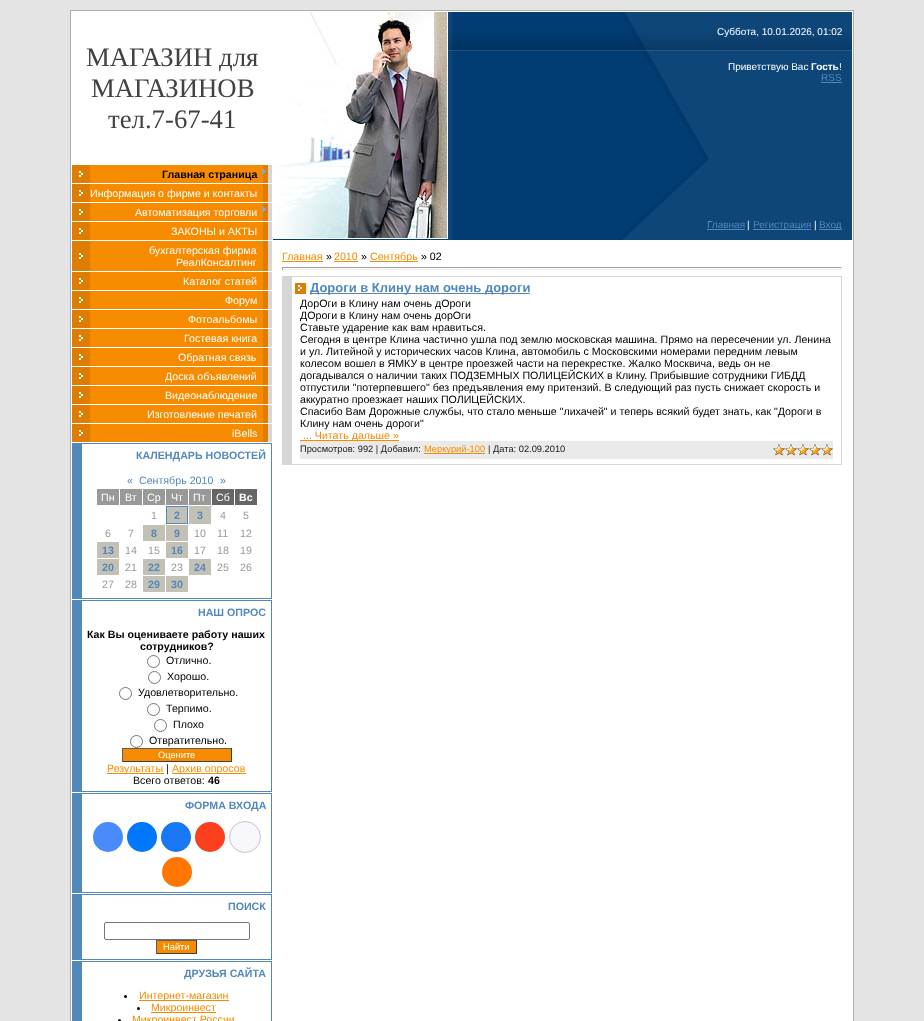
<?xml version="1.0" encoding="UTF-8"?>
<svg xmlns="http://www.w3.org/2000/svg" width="924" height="1021">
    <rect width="100%" height="100%" fill="#E4E4E4"/>
    <rect x="70.5" y="10.5" width="783" height="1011" fill="#FFFFFF" stroke="#AFAFAF"/>
    <text x="86" y="66" font-family="Liberation Serif" font-size="26.75" fill="#424242">МАГАЗИН для</text>
    <text x="91" y="97" font-family="Liberation Serif" font-size="26.75" fill="#424242">МАГАЗИНОВ</text>
    <text x="108" y="128" font-family="Liberation Serif" font-size="26.75" fill="#424242">тел.7-67-41</text>
    <image x="72" y="165" width="200" height="18" href="img_01.png"/>
    <text x="162" y="178" font-family="Liberation Sans" font-size="10.65" font-weight="700" fill="#000000">Главная страница</text>
    <image x="262" y="168" width="4" height="7" href="img_02.png"/>
    <image x="72" y="184" width="200" height="18" href="img_01.png"/>
    <text x="90" y="197" font-family="Liberation Sans" font-size="10.65" fill="#FFFFFF">Информация о фирме и контакты</text>
    <image x="72" y="203" width="200" height="18" href="img_01.png"/>
    <text x="135" y="216" font-family="Liberation Sans" font-size="10.65" fill="#FFFFFF">Автоматизация торговли</text>
    <image x="262" y="206" width="4" height="7" href="img_02.png"/>
    <image x="72" y="222" width="200" height="18" href="img_01.png"/>
    <text x="171" y="235" font-family="Liberation Sans" font-size="10.65" fill="#FFFFFF">ЗАКОНЫ и АКТЫ</text>
    <image x="72" y="241" width="200" height="30" href="img_03.png"/>
    <text x="149" y="254" font-family="Liberation Sans" font-size="10.65" fill="#FFFFFF">бухгалтерская фирма</text>
    <text x="176" y="266" font-family="Liberation Sans" font-size="10.65" fill="#FFFFFF">РеалКонсалтинг</text>
    <image x="72" y="272" width="200" height="18" href="img_01.png"/>
    <text x="183" y="285" font-family="Liberation Sans" font-size="10.65" fill="#FFFFFF">Каталог статей</text>
    <image x="72" y="291" width="200" height="18" href="img_01.png"/>
    <text x="225" y="304" font-family="Liberation Sans" font-size="10.65" fill="#FFFFFF">Форум</text>
    <image x="72" y="310" width="200" height="18" href="img_01.png"/>
    <text x="188" y="323" font-family="Liberation Sans" font-size="10.65" fill="#FFFFFF">Фотоальбомы</text>
    <image x="72" y="329" width="200" height="18" href="img_01.png"/>
    <text x="184" y="342" font-family="Liberation Sans" font-size="10.65" fill="#FFFFFF">Гостевая книга</text>
    <image x="72" y="348" width="200" height="18" href="img_01.png"/>
    <text x="178" y="361" font-family="Liberation Sans" font-size="10.65" fill="#FFFFFF">Обратная связь</text>
    <image x="72" y="367" width="200" height="18" href="img_01.png"/>
    <text x="165" y="380" font-family="Liberation Sans" font-size="10.65" fill="#FFFFFF">Доска объявлений</text>
    <image x="72" y="386" width="200" height="18" href="img_01.png"/>
    <text x="165" y="399" font-family="Liberation Sans" font-size="10.65" fill="#FFFFFF">Видеонаблюдение</text>
    <image x="72" y="405" width="200" height="18" href="img_01.png"/>
    <text x="147" y="418" font-family="Liberation Sans" font-size="10.65" fill="#FFFFFF">Изготовление печатей</text>
    <image x="72" y="424" width="200" height="18" href="img_01.png"/>
    <text x="232" y="437" font-family="Liberation Sans" font-size="10.65" fill="#FFFFFF">iBells</text>
    <rect x="82" y="443" width="190" height="1" fill="#5388BA"/>
    <rect x="271" y="443" width="1" height="156" fill="#5388BA"/>
    <rect x="82" y="598" width="190" height="1" fill="#5388BA"/>
    <rect x="72" y="443" width="10" height="156" fill="#5388BA"/>
    <text x="136" y="459" font-family="Liberation Sans" font-size="10.65" font-weight="700" fill="#5388BA">КАЛЕНДАРЬ НОВОСТЕЙ</text>
    <text x="127" y="484" font-family="Liberation Sans" font-size="10.65" fill="#5388BA">«</text>
    <text x="139" y="484" font-family="Liberation Sans" font-size="10.65" fill="#5388BA">Сентябрь 2010</text>
    <text x="220" y="484" font-family="Liberation Sans" font-size="10.65" fill="#5388BA">»</text>
    <rect x="97" y="489" width="22" height="16" fill="#999999"/>
    <text x="101" y="501" font-family="Liberation Sans" font-size="10.65" fill="#FFFFFF">Пн</text>
    <rect x="120" y="489" width="22" height="16" fill="#999999"/>
    <text x="125" y="501" font-family="Liberation Sans" font-size="10.65" fill="#FFFFFF">Вт</text>
    <rect x="143" y="489" width="22" height="16" fill="#999999"/>
    <text x="147" y="501" font-family="Liberation Sans" font-size="10.65" fill="#FFFFFF">Ср</text>
    <rect x="166" y="489" width="22" height="16" fill="#999999"/>
    <text x="171" y="501" font-family="Liberation Sans" font-size="10.65" fill="#FFFFFF">Чт</text>
    <rect x="189" y="489" width="22" height="16" fill="#999999"/>
    <text x="193" y="501" font-family="Liberation Sans" font-size="10.65" fill="#FFFFFF">Пт</text>
    <rect x="212" y="489" width="22" height="16" fill="#666666"/>
    <text x="216" y="501" font-family="Liberation Sans" font-size="10.65" fill="#FFFFFF">Сб</text>
    <rect x="235" y="489" width="22" height="16" fill="#666666"/>
    <text x="239" y="501" font-family="Liberation Sans" font-size="10.65" font-weight="700" fill="#FFFFFF">Вс</text>
    <text x="151" y="519" font-family="Liberation Sans" font-size="10.65" fill="#999999">1</text>
    <rect x="166.5" y="506.5" width="21" height="17" fill="#C3C0B5" stroke="#5388BA"/>
    <text x="174" y="519" font-family="Liberation Sans" font-size="10.65" font-weight="700" fill="#5388BA">2</text>
    <rect x="189" y="506" width="22" height="18" fill="#C3C0B5"/>
    <text x="197" y="519" font-family="Liberation Sans" font-size="10.65" font-weight="700" fill="#5388BA">3</text>
    <text x="220" y="519" font-family="Liberation Sans" font-size="10.65" fill="#999999">4</text>
    <text x="243" y="519" font-family="Liberation Sans" font-size="10.65" fill="#999999">5</text>
    <text x="105" y="537" font-family="Liberation Sans" font-size="10.65" fill="#999999">6</text>
    <text x="128" y="537" font-family="Liberation Sans" font-size="10.65" fill="#999999">7</text>
    <rect x="143" y="525" width="22" height="16" fill="#C3C0B5"/>
    <text x="151" y="537" font-family="Liberation Sans" font-size="10.65" font-weight="700" fill="#5388BA">8</text>
    <rect x="166" y="525" width="22" height="16" fill="#C3C0B5"/>
    <text x="174" y="537" font-family="Liberation Sans" font-size="10.65" font-weight="700" fill="#5388BA">9</text>
    <text x="194" y="537" font-family="Liberation Sans" font-size="10.65" fill="#999999">10</text>
    <text x="217" y="537" font-family="Liberation Sans" font-size="10.65" fill="#999999">11</text>
    <text x="240" y="537" font-family="Liberation Sans" font-size="10.65" fill="#999999">12</text>
    <rect x="97" y="542" width="22" height="16" fill="#C3C0B5"/>
    <text x="102" y="554" font-family="Liberation Sans" font-size="10.65" font-weight="700" fill="#5388BA">13</text>
    <text x="125" y="554" font-family="Liberation Sans" font-size="10.65" fill="#999999">14</text>
    <text x="148" y="554" font-family="Liberation Sans" font-size="10.65" fill="#999999">15</text>
    <rect x="166" y="542" width="22" height="16" fill="#C3C0B5"/>
    <text x="171" y="554" font-family="Liberation Sans" font-size="10.65" font-weight="700" fill="#5388BA">16</text>
    <text x="194" y="554" font-family="Liberation Sans" font-size="10.65" fill="#999999">17</text>
    <text x="217" y="554" font-family="Liberation Sans" font-size="10.65" fill="#999999">18</text>
    <text x="240" y="554" font-family="Liberation Sans" font-size="10.65" fill="#999999">19</text>
    <rect x="97" y="559" width="22" height="16" fill="#C3C0B5"/>
    <text x="102" y="571" font-family="Liberation Sans" font-size="10.65" font-weight="700" fill="#5388BA">20</text>
    <text x="125" y="571" font-family="Liberation Sans" font-size="10.65" fill="#999999">21</text>
    <rect x="143" y="559" width="22" height="16" fill="#C3C0B5"/>
    <text x="148" y="571" font-family="Liberation Sans" font-size="10.65" font-weight="700" fill="#5388BA">22</text>
    <text x="171" y="571" font-family="Liberation Sans" font-size="10.65" fill="#999999">23</text>
    <rect x="189" y="559" width="22" height="16" fill="#C3C0B5"/>
    <text x="194" y="571" font-family="Liberation Sans" font-size="10.65" font-weight="700" fill="#5388BA">24</text>
    <text x="217" y="571" font-family="Liberation Sans" font-size="10.65" fill="#999999">25</text>
    <text x="240" y="571" font-family="Liberation Sans" font-size="10.65" fill="#999999">26</text>
    <text x="102" y="588" font-family="Liberation Sans" font-size="10.65" fill="#999999">27</text>
    <text x="125" y="588" font-family="Liberation Sans" font-size="10.65" fill="#999999">28</text>
    <rect x="143" y="576" width="22" height="16" fill="#C3C0B5"/>
    <text x="148" y="588" font-family="Liberation Sans" font-size="10.65" font-weight="700" fill="#5388BA">29</text>
    <rect x="166" y="576" width="22" height="16" fill="#C3C0B5"/>
    <text x="171" y="588" font-family="Liberation Sans" font-size="10.65" font-weight="700" fill="#5388BA">30</text>
    <rect x="82" y="600" width="190" height="1" fill="#5388BA"/>
    <rect x="271" y="600" width="1" height="192" fill="#5388BA"/>
    <rect x="82" y="791" width="190" height="1" fill="#5388BA"/>
    <rect x="72" y="600" width="10" height="192" fill="#5388BA"/>
    <text x="198" y="616" font-family="Liberation Sans" font-size="10.65" font-weight="700" fill="#5388BA">НАШ ОПРОС</text>
    <text x="87" y="638" font-family="Liberation Sans" font-size="10.65" font-weight="700" fill="#000000">Как Вы оцениваете работу наших</text>
    <text x="140" y="650" font-family="Liberation Sans" font-size="10.65" font-weight="700" fill="#000000">сотрудников?</text>
    <circle cx="153.5" cy="661.5" r="6" fill="none" stroke="#767676"/>
    <text x="166" y="664" font-family="Liberation Sans" font-size="10.65" fill="#000000">Отлично.</text>
    <circle cx="154.5" cy="677.5" r="6" fill="none" stroke="#767676"/>
    <text x="167" y="680" font-family="Liberation Sans" font-size="10.65" fill="#000000">Хорошо.</text>
    <circle cx="125.5" cy="693.5" r="6" fill="none" stroke="#767676"/>
    <text x="138" y="696" font-family="Liberation Sans" font-size="10.65" fill="#000000">Удовлетворительно.</text>
    <circle cx="153.5" cy="709.5" r="6" fill="none" stroke="#767676"/>
    <text x="166" y="712" font-family="Liberation Sans" font-size="10.65" fill="#000000">Терпимо.</text>
    <circle cx="160.5" cy="725.5" r="6" fill="none" stroke="#767676"/>
    <text x="173" y="728" font-family="Liberation Sans" font-size="10.65" fill="#000000">Плохо</text>
    <circle cx="136.5" cy="741.5" r="6" fill="none" stroke="#767676"/>
    <text x="149" y="744" font-family="Liberation Sans" font-size="10.65" fill="#000000">Отвратительно.</text>
    <rect x="123" y="749" width="108" height="12" fill="#F78B00"/>
    <rect x="122" y="748" width="110" height="1" fill="#615E58"/>
    <rect x="231" y="748" width="1" height="14" fill="#413F3B"/>
    <rect x="122" y="761" width="110" height="1" fill="#413F3B"/>
    <rect x="122" y="748" width="1" height="14" fill="#615E58"/>
    <text x="158" y="758" font-family="Liberation Sans" font-size="9.3" fill="#FFFFFF">Оцените</text>
    <rect x="107" y="773" width="57" height="1" fill="#F78B00"/>
    <text x="107" y="772" font-family="Liberation Sans" font-size="10.65" fill="#F78B00">Результаты</text>
    <text x="166" y="772" font-family="Liberation Sans" font-size="10.65" fill="#000000">|</text>
    <rect x="172" y="773" width="74" height="1" fill="#F78B00"/>
    <text x="172" y="772" font-family="Liberation Sans" font-size="10.65" fill="#F78B00">Архив опросов</text>
    <text x="133" y="784" font-family="Liberation Sans" font-size="10.65" fill="#000000">Всего ответов:</text>
    <text x="208" y="784" font-family="Liberation Sans" font-size="10.65" font-weight="700" fill="#000000">46</text>
    <rect x="82" y="793" width="190" height="1" fill="#5388BA"/>
    <rect x="271" y="793" width="1" height="100" fill="#5388BA"/>
    <rect x="82" y="892" width="190" height="1" fill="#5388BA"/>
    <rect x="72" y="793" width="10" height="100" fill="#5388BA"/>
    <text x="185" y="809" font-family="Liberation Sans" font-size="10.65" font-weight="700" fill="#5388BA">ФОРМА ВХОДА</text>
    <circle cx="108" cy="837" r="15" fill="#498BFA"/>
    <circle cx="142" cy="837" r="15" fill="#0077FF"/>
    <circle cx="176" cy="837" r="15" fill="#1877F2"/>
    <circle cx="210" cy="837" r="15" fill="#FC3F1D"/>
    <circle cx="245" cy="837" r="15.5" fill="#F8F8FC" stroke="#C4C4C4"/>
    <circle cx="177" cy="872" r="15" fill="#FF7700"/>
    <rect x="82" y="894" width="190" height="1" fill="#5388BA"/>
    <rect x="271" y="894" width="1" height="66" fill="#5388BA"/>
    <rect x="82" y="959" width="190" height="1" fill="#5388BA"/>
    <rect x="72" y="894" width="10" height="66" fill="#5388BA"/>
    <text x="228" y="910" font-family="Liberation Sans" font-size="10.65" font-weight="700" fill="#5388BA">ПОИСК</text>
    <rect x="104.5" y="922.5" width="145" height="17" rx="1.5" fill="none" stroke="#767676"/>
    <rect x="157" y="941" width="39" height="12" fill="#F78B00"/>
    <rect x="156" y="940" width="41" height="1" fill="#615E58"/>
    <rect x="196" y="940" width="1" height="14" fill="#413F3B"/>
    <rect x="156" y="953" width="41" height="1" fill="#413F3B"/>
    <rect x="156" y="940" width="1" height="14" fill="#615E58"/>
    <text x="163" y="950" font-family="Liberation Sans" font-size="9.3" fill="#FFFFFF">Найти</text>
    <rect x="82" y="961" width="190" height="1" fill="#5388BA"/>
    <rect x="271" y="961" width="1" height="60" fill="#5388BA"/>
    <rect x="72" y="961" width="10" height="60" fill="#5388BA"/>
    <text x="184" y="977" font-family="Liberation Sans" font-size="10.65" font-weight="700" fill="#5388BA">ДРУЗЬЯ САЙТА</text>
    <circle cx="125.5" cy="996.5" r="1.5" fill="#000000"/>
    <rect x="139" y="1000" width="90" height="1" fill="#F78B00"/>
    <text x="139" y="999" font-family="Liberation Sans" font-size="10.65" fill="#F78B00">Интернет-магазин</text>
    <circle cx="138.5" cy="1008.5" r="1.5" fill="#000000"/>
    <rect x="151" y="1012" width="65" height="1" fill="#F78B00"/>
    <text x="151" y="1011" font-family="Liberation Sans" font-size="10.65" fill="#F78B00">Микроинвест</text>
    <circle cx="119.5" cy="1020.5" r="1.5" fill="#000000"/>
    <text x="132" y="1023" font-family="Liberation Sans" font-size="10.65" fill="#F78B00">Микроинвест России</text>
    <image x="448" y="12" width="404" height="228" href="img_04.png"/>
    <image x="272" y="12" width="176" height="228" href="img_05.png"/>
    <text x="717" y="35" font-family="Liberation Sans" font-size="10" fill="#FFFFFF">Суббота, 10.01.2026, 01:02</text>
    <text x="728" y="70" font-family="Liberation Sans" font-size="10" fill="#FFFFFF">Приветствую Вас</text>
    <text x="811" y="70" font-family="Liberation Sans" font-size="10" font-weight="700" fill="#FFFFFF">Гость</text>
    <text x="839" y="70" font-family="Liberation Sans" font-size="10" fill="#FFFFFF">!</text>
    <text x="821" y="81" font-family="Liberation Sans" font-size="10" fill="#5388BA">RSS</text>
    <rect x="821" y="82" width="21" height="1" fill="#5388BA"/>
    <text x="707" y="228" font-family="Liberation Sans" font-size="10" fill="#5388BA">Главная</text>
    <rect x="707" y="229" width="38" height="1" fill="#5388BA"/>
    <text x="747" y="228" font-family="Liberation Sans" font-size="10" fill="#FFFFFF">|</text>
    <rect x="753" y="229" width="58" height="1" fill="#5388BA"/>
    <text x="753" y="228" font-family="Liberation Sans" font-size="10" fill="#5388BA">Регистрация</text>
    <text x="814" y="228" font-family="Liberation Sans" font-size="10" fill="#FFFFFF">|</text>
    <rect x="819" y="229" width="23" height="1" fill="#5388BA"/>
    <text x="819" y="228" font-family="Liberation Sans" font-size="10" fill="#5388BA">Вход</text>
    <text x="282" y="260" font-family="Liberation Sans" font-size="10.65" fill="#F78B00">Главная</text>
    <rect x="282" y="261" width="41" height="1" fill="#F78B00"/>
    <text x="326" y="260" font-family="Liberation Sans" font-size="10.65" fill="#000000">»</text>
    <text x="334" y="260" font-family="Liberation Sans" font-size="10.65" fill="#F78B00">2010</text>
    <rect x="334" y="261" width="24" height="1" fill="#F78B00"/>
    <text x="361" y="260" font-family="Liberation Sans" font-size="10.65" fill="#000000">»</text>
    <rect x="370" y="261" width="48" height="1" fill="#F78B00"/>
    <text x="370" y="260" font-family="Liberation Sans" font-size="10.65" fill="#F78B00">Сентябрь</text>
    <text x="421" y="260" font-family="Liberation Sans" font-size="10.65" fill="#000000">» 02</text>
    <rect x="282" y="267" width="560" height="1" fill="#9F9F9F"/>
    <rect x="841" y="267" width="1" height="3" fill="#EEEEEE"/>
    <rect x="282" y="269" width="560" height="1" fill="#EEEEEE"/>
    <rect x="282" y="267" width="1" height="3" fill="#9F9F9F"/>
    <rect x="292" y="276" width="550" height="1" fill="#D6D6D6"/>
    <rect x="841" y="276" width="1" height="189" fill="#D6D6D6"/>
    <rect x="292" y="464" width="550" height="1" fill="#D6D6D6"/>
    <rect x="282" y="276" width="10" height="189" fill="#D6D6D6"/>
    <image x="295" y="283" width="11" height="11" href="img_06.png"/>
    <rect x="310" y="293" width="220" height="1" fill="#5388BA"/>
    <text x="310" y="292" font-family="Liberation Sans" font-size="13" font-weight="700" fill="#5388BA">Дороги в Клину нам очень дороги</text>
    <text font-family="Liberation Sans" font-size="10.65" fill="#000000">
        <tspan x="300" y="307">ДорОги в Клину нам очень дОроги</tspan>
        <tspan x="300" y="319">ДОроги в Клину нам очень дорОги</tspan>
        <tspan x="300" y="331">Ставьте ударение как вам нравиться.</tspan>
        <tspan x="300" y="343">Сегодня в центре Клина частично ушла под землю московская машина. Прямо на пересечении ул. Ленина</tspan>
        <tspan x="300" y="355">и ул. Литейной у исторических часов Клина, автомобиль с Московскими номерами передним левым</tspan>
        <tspan x="300" y="367">колесом вошел в ЯМКУ в центре проезжей части на перекрестке. Жалко Москвича, ведь он не</tspan>
        <tspan x="300" y="379">догадывался о наличии таких ПОДЗЕМНЫХ ПОЛИЦЕЙСКИХ в Клину. Прибывшие сотрудники ГИБДД</tspan>
        <tspan x="300" y="391">отпустили "потерпевшего" без предъявления ему притензий. В следующий раз пусть снижает скорость и</tspan>
        <tspan x="300" y="403">аккуратно проезжает наших ПОЛИЦЕЙСКИХ.</tspan>
        <tspan x="300" y="415">Спасибо Вам Дорожные службы, что стало меньше "лихачей" и теперь всякий будет знать, как "Дороги в</tspan>
        <tspan x="300" y="427">Клину нам очень дороги"</tspan>
    </text>
    <rect x="300" y="440" width="99" height="1" fill="#F78B00"/>
    <rect x="300" y="441" width="533" height="18" fill="#EAEAEA"/>
    <text x="303" y="439" font-family="Liberation Sans" font-size="10.65" fill="#F78B00">... Читать дальше »</text>
    <text x="300" y="452" font-family="Liberation Sans" font-size="9.3" fill="#1A1A1A">Просмотров: 992 | Добавил:</text>
    <rect x="424" y="453" width="61" height="1" fill="#F78B00"/>
    <text x="424" y="452" font-family="Liberation Sans" font-size="9.3" fill="#F78B00">Меркурий-100</text>
    <text x="488" y="452" font-family="Liberation Sans" font-size="9.3" fill="#1A1A1A">| Дата: 02.09.2010</text>
    <image x="773" y="444" width="60" height="12" href="img_07.png"/>
    <image x="773" y="444" width="60" height="12" href="img_08.png"/>
</svg>
